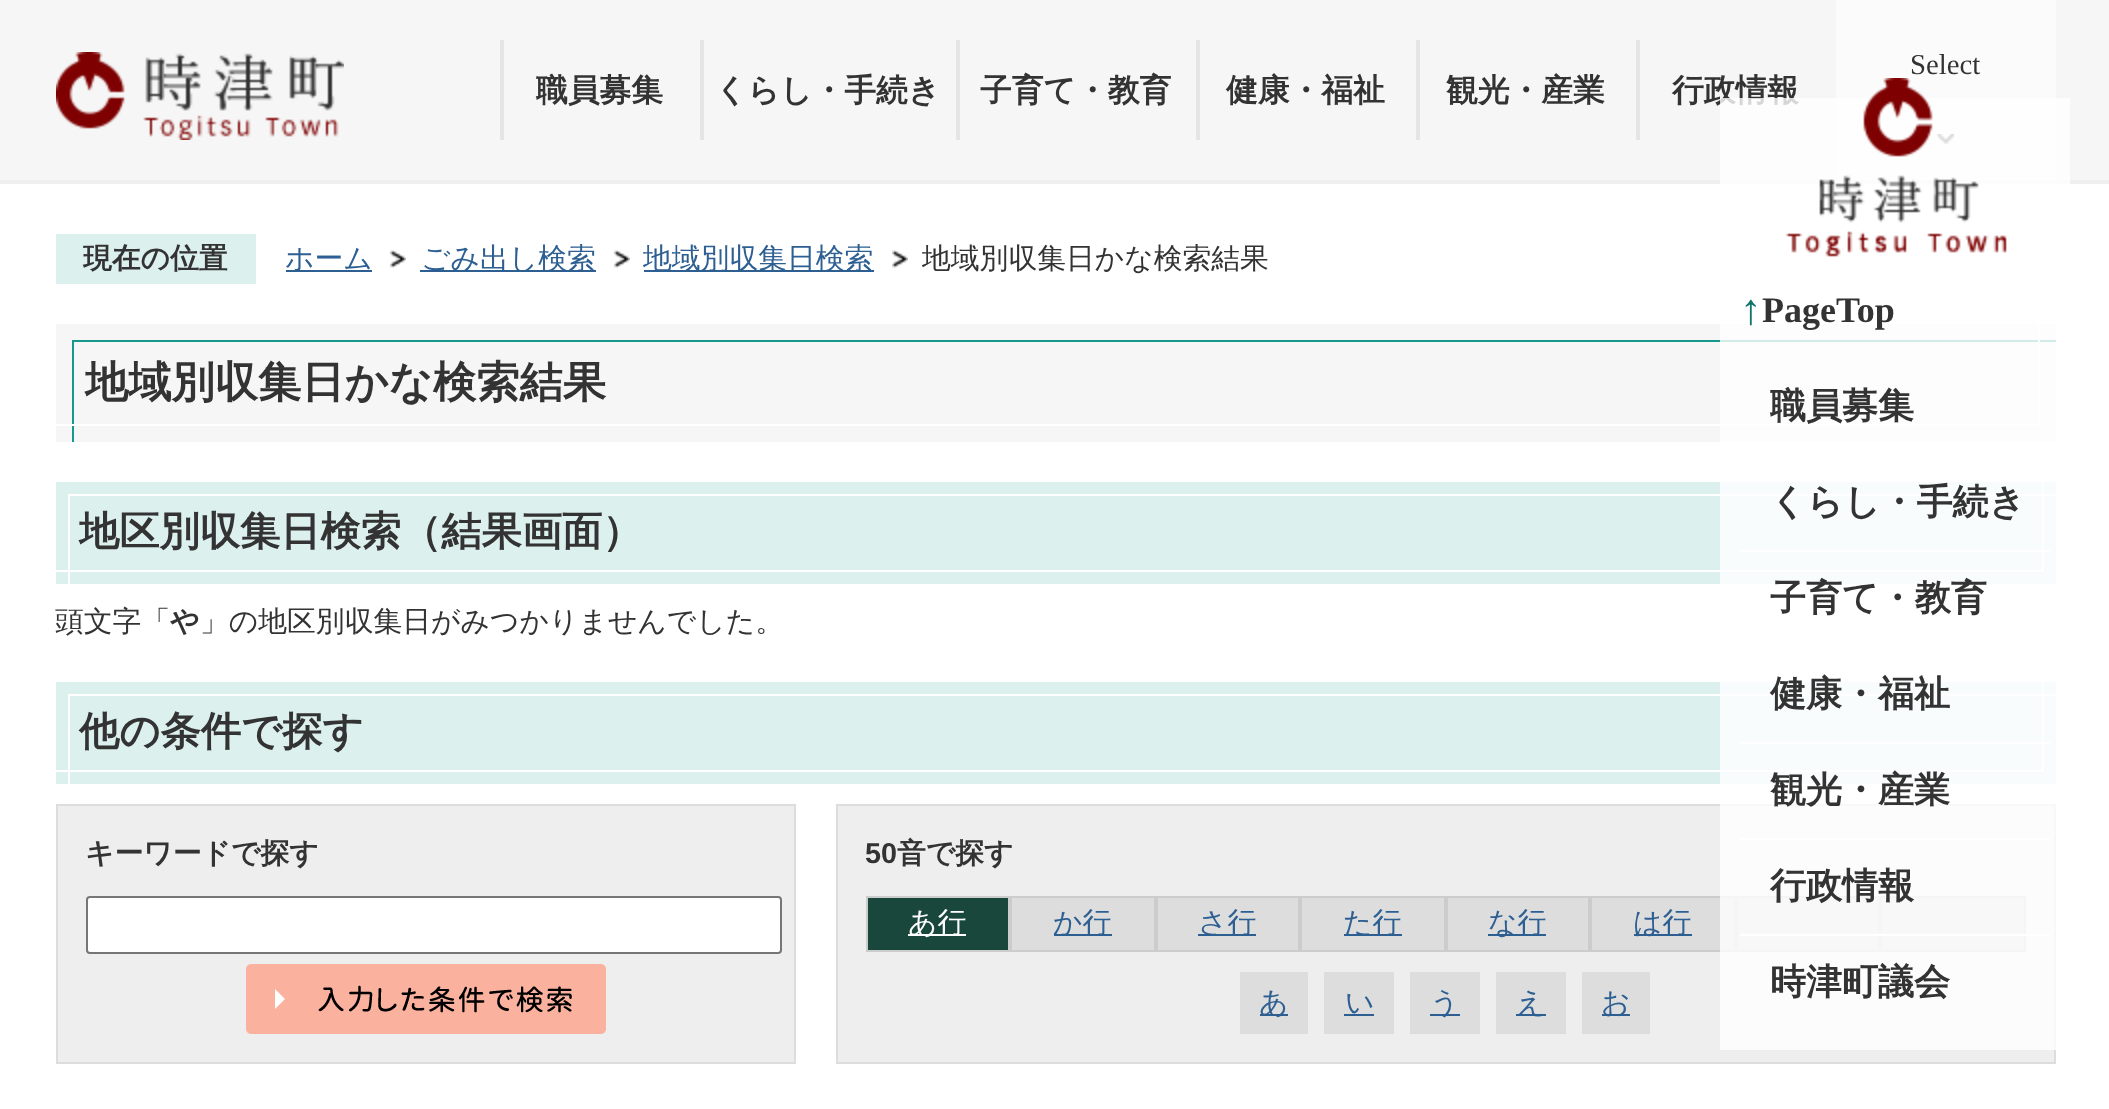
<?xml version="1.0" encoding="UTF-8"?>
<svg xmlns="http://www.w3.org/2000/svg" width="2109" height="1109">
    <rect width="100%" height="100%" fill="#FFFFFF"/>
    <rect x="0" y="0" width="2109" height="180" fill="#F6F6F6"/>
    <rect x="0" y="180" width="2109" height="4" fill="#EFEFEF"/>
    <image x="56" y="52" width="288" height="88" href="img_01.png"/>
    <rect x="1836" y="0" width="220" height="180" fill="#FBFBFB"/>
    <text x="1910" y="74" font-family="Liberation Serif" font-size="28.8" fill="#333333">Select</text>
    <image x="1936" y="134" width="18" height="10" href="img_02.png"/>
    <rect x="500" y="40" width="4" height="100" fill="#E5E5E5"/>
    <text x="536" y="101" font-family="WenQuanYi Zen Hei" font-size="31.75" font-weight="700" fill="#333333">職員募集</text>
    <rect x="700" y="40" width="4" height="100" fill="#E5E5E5"/>
    <text x="715" y="101" font-family="WenQuanYi Zen Hei" font-size="31.75" font-weight="700" fill="#333333">くらし・手続き</text>
    <rect x="956" y="40" width="4" height="100" fill="#E5E5E5"/>
    <text x="980" y="101" font-family="WenQuanYi Zen Hei" font-size="31.75" font-weight="700" fill="#333333">子育て・教育</text>
    <rect x="1196" y="40" width="4" height="100" fill="#E5E5E5"/>
    <text x="1226" y="101" font-family="WenQuanYi Zen Hei" font-size="31.75" font-weight="700" fill="#333333">健康・福祉</text>
    <rect x="1416" y="40" width="4" height="100" fill="#E5E5E5"/>
    <text x="1446" y="101" font-family="WenQuanYi Zen Hei" font-size="31.75" font-weight="700" fill="#333333">観光・産業</text>
    <rect x="1636" y="40" width="4" height="100" fill="#E5E5E5"/>
    <text x="1672" y="101" font-family="WenQuanYi Zen Hei" font-size="31.75" font-weight="700" fill="#333333">行政情報</text>
    <rect x="56" y="234" width="200" height="50" fill="#DCF0EE"/>
    <text x="83" y="268" font-family="WenQuanYi Zen Hei" font-size="28.8" font-weight="700" fill="#333333">現在の位置</text>
    <rect x="286" y="270" width="86" height="2" fill="#2D5F92"/>
    <text x="285" y="268" font-family="WenQuanYi Zen Hei" font-size="28.8" font-weight="500" fill="#2D5F92">ホーム</text>
    <image x="390" y="250" width="16" height="18" href="img_03.png"/>
    <rect x="420" y="270" width="176" height="2" fill="#2D5F92"/>
    <text x="421" y="268" font-family="WenQuanYi Zen Hei" font-size="28.8" font-weight="500" fill="#2D5F92">ごみ出し検索</text>
    <image x="614" y="250" width="16" height="18" href="img_03.png"/>
    <rect x="644" y="270" width="230" height="2" fill="#2D5F92"/>
    <text x="643" y="268" font-family="WenQuanYi Zen Hei" font-size="28.8" font-weight="500" fill="#2D5F92">地域別収集日検索</text>
    <image x="892" y="250" width="16" height="18" href="img_03.png"/>
    <text x="922" y="268" font-family="WenQuanYi Zen Hei" font-size="28.8" font-weight="500" fill="#333333">地域別収集日かな検索結果</text>
    <rect x="56" y="324" width="2000" height="118" fill="#F6F6F6"/>
    <rect x="72" y="340" width="1984" height="2" fill="#16998C"/>
    <rect x="2038" y="324" width="2" height="102" fill="#FFFFFF"/>
    <rect x="72" y="340" width="2" height="102" fill="#16998C"/>
    <rect x="56" y="424" width="1984" height="2" fill="#FFFFFF"/>
    <text x="85" y="397" font-family="WenQuanYi Zen Hei" font-size="43.25" font-weight="700" fill="#333333">地域別収集日かな検索結果</text>
    <rect x="56" y="482" width="2000" height="102" fill="#DCF0EE"/>
    <rect x="69" y="495" width="1974" height="76" fill="none" stroke="#FFFFFF" stroke-width="2"/>
    <rect x="2042" y="494" width="14" height="2" fill="#FFFFFF"/>
    <rect x="2042" y="482" width="2" height="14" fill="#FFFFFF"/>
    <text x="79" y="545" font-family="WenQuanYi Zen Hei" font-size="40.25" font-weight="700" fill="#333333">地区別収集日検索（結果画面）</text>
    <rect x="56" y="570" width="14" height="2" fill="#FFFFFF"/>
    <rect x="68" y="570" width="2" height="14" fill="#FFFFFF"/>
    <text x="55" y="631" font-family="WenQuanYi Zen Hei" font-size="28.8" font-weight="500" fill="#333333">頭文字「</text>
    <text x="170" y="631" font-family="WenQuanYi Zen Hei" font-size="28.8" font-weight="700" fill="#333333">や</text>
    <text x="200" y="631" font-family="WenQuanYi Zen Hei" font-size="28.8" font-weight="500" fill="#333333">」の地区別収集日がみつかりませんでした。</text>
    <rect x="56" y="682" width="2000" height="102" fill="#DCF0EE"/>
    <rect x="69" y="695" width="1974" height="76" fill="none" stroke="#FFFFFF" stroke-width="2"/>
    <rect x="2042" y="694" width="14" height="2" fill="#FFFFFF"/>
    <rect x="2042" y="682" width="2" height="14" fill="#FFFFFF"/>
    <text x="79" y="745" font-family="WenQuanYi Zen Hei" font-size="40.25" font-weight="700" fill="#333333">他の条件で探す</text>
    <rect x="56" y="770" width="14" height="2" fill="#FFFFFF"/>
    <rect x="68" y="770" width="2" height="14" fill="#FFFFFF"/>
    <rect x="57" y="805" width="738" height="258" fill="#EEEEEE" stroke="#DDDDDD" stroke-width="2"/>
    <text x="85" y="863" font-family="WenQuanYi Zen Hei" font-size="28.8" font-weight="700" fill="#333333">キーワードで探す</text>
    <rect x="87" y="897" width="694" height="56" rx="3" fill="#FFFFFF" stroke="#767676" stroke-width="2"/>
    <image x="246" y="964" width="360" height="70" href="img_04.png"/>
    <rect x="837" y="805" width="1218" height="258" fill="#EEEEEE" stroke="#DDDDDD" stroke-width="2"/>
    <text x="865" y="863" font-family="Liberation Sans" font-size="28.8" font-weight="700" fill="#333333">50</text>
    <text x="897" y="863" font-family="WenQuanYi Zen Hei" font-size="28.8" font-weight="700" fill="#333333">音で探す</text>
    <rect x="867" y="897" width="142" height="54" fill="#1A473B" stroke="#CCCCCC" stroke-width="2"/>
    <rect x="908" y="934" width="58" height="2" fill="#FFFFFF"/>
    <text x="908" y="932" font-family="WenQuanYi Zen Hei" font-size="28.8" font-weight="500" fill="#FFFFFF">あ行</text>
    <rect x="1011" y="897" width="144" height="54" fill="#DDDDDD" stroke="#CCCCCC" stroke-width="2"/>
    <rect x="1054" y="934" width="58" height="2" fill="#2D5F92"/>
    <text x="1053" y="932" font-family="WenQuanYi Zen Hei" font-size="28.8" font-weight="500" fill="#2D5F92">か行</text>
    <rect x="1157" y="897" width="142" height="54" fill="#DDDDDD" stroke="#CCCCCC" stroke-width="2"/>
    <rect x="1198" y="934" width="58" height="2" fill="#2D5F92"/>
    <text x="1198" y="932" font-family="WenQuanYi Zen Hei" font-size="28.8" font-weight="500" fill="#2D5F92">さ行</text>
    <rect x="1301" y="897" width="144" height="54" fill="#DDDDDD" stroke="#CCCCCC" stroke-width="2"/>
    <rect x="1344" y="934" width="58" height="2" fill="#2D5F92"/>
    <text x="1343" y="932" font-family="WenQuanYi Zen Hei" font-size="28.8" font-weight="500" fill="#2D5F92">た行</text>
    <rect x="1447" y="897" width="142" height="54" fill="#DDDDDD" stroke="#CCCCCC" stroke-width="2"/>
    <rect x="1488" y="934" width="58" height="2" fill="#2D5F92"/>
    <text x="1488" y="932" font-family="WenQuanYi Zen Hei" font-size="28.8" font-weight="500" fill="#2D5F92">な行</text>
    <rect x="1591" y="897" width="144" height="54" fill="#DDDDDD" stroke="#CCCCCC" stroke-width="2"/>
    <rect x="1634" y="934" width="58" height="2" fill="#2D5F92"/>
    <text x="1633" y="932" font-family="WenQuanYi Zen Hei" font-size="28.8" font-weight="500" fill="#2D5F92">は行</text>
    <rect x="1737" y="897" width="142" height="54" fill="#DDDDDD" stroke="#CCCCCC" stroke-width="2"/>
    <rect x="1881" y="897" width="144" height="54" fill="#DDDDDD" stroke="#CCCCCC" stroke-width="2"/>
    <rect x="1240" y="972" width="68" height="62" fill="#DDDDDD"/>
    <rect x="1260" y="1014" width="28" height="2" fill="#2D5F92"/>
    <text x="1259" y="1012" font-family="WenQuanYi Zen Hei" font-size="28.8" font-weight="500" fill="#2D5F92">あ</text>
    <rect x="1324" y="972" width="70" height="62" fill="#DDDDDD"/>
    <text x="1345" y="1012" font-family="WenQuanYi Zen Hei" font-size="28.8" font-weight="500" fill="#2D5F92">い</text>
    <rect x="1344" y="1014" width="30" height="2" fill="#2D5F92"/>
    <rect x="1410" y="972" width="70" height="62" fill="#DDDDDD"/>
    <rect x="1430" y="1014" width="30" height="2" fill="#2D5F92"/>
    <text x="1430" y="1012" font-family="WenQuanYi Zen Hei" font-size="28.8" font-weight="500" fill="#2D5F92">う</text>
    <rect x="1496" y="972" width="70" height="62" fill="#DDDDDD"/>
    <rect x="1516" y="1014" width="30" height="2" fill="#2D5F92"/>
    <text x="1516" y="1012" font-family="WenQuanYi Zen Hei" font-size="28.8" font-weight="500" fill="#2D5F92">え</text>
    <rect x="1582" y="972" width="68" height="62" fill="#DDDDDD"/>
    <rect x="1602" y="1014" width="28" height="2" fill="#2D5F92"/>
    <text x="1601" y="1012" font-family="WenQuanYi Zen Hei" font-size="28.8" font-weight="500" fill="#2D5F92">お</text>
    <rect x="1720" y="98" width="350" height="952" fill="#FFFFFF" fill-opacity="0.8"/>
    <image x="1785" y="78" width="222" height="179" href="img_05.png"/>
    <text x="1740" y="324" font-family="Liberation Serif" font-size="43.25" font-weight="700" fill="#10746A">↑</text>
    <text x="1762" y="322" font-family="Liberation Serif" font-size="36" font-weight="700" fill="#333333">PageTop</text>
    <text x="1770" y="418" font-family="WenQuanYi Zen Hei" font-size="36" font-weight="700" fill="#333333">職員募集</text>
    <text x="1770" y="514" font-family="WenQuanYi Zen Hei" font-size="36" font-weight="700" fill="#333333">くらし・手続き</text>
    <rect x="1740" y="550" width="310" height="2" fill="#FFFFFF"/>
    <text x="1770" y="610" font-family="WenQuanYi Zen Hei" font-size="36" font-weight="700" fill="#333333">子育て・教育</text>
    <text x="1770" y="706" font-family="WenQuanYi Zen Hei" font-size="36" font-weight="700" fill="#333333">健康・福祉</text>
    <rect x="1740" y="742" width="310" height="2" fill="#FFFFFF"/>
    <text x="1770" y="802" font-family="WenQuanYi Zen Hei" font-size="36" font-weight="700" fill="#333333">観光・産業</text>
    <rect x="1740" y="838" width="310" height="2" fill="#FFFFFF"/>
    <text x="1770" y="898" font-family="WenQuanYi Zen Hei" font-size="36" font-weight="700" fill="#333333">行政情報</text>
    <rect x="1740" y="934" width="310" height="2" fill="#FFFFFF"/>
    <text x="1770" y="994" font-family="WenQuanYi Zen Hei" font-size="36" font-weight="700" fill="#333333">時津町議会</text>
</svg>
